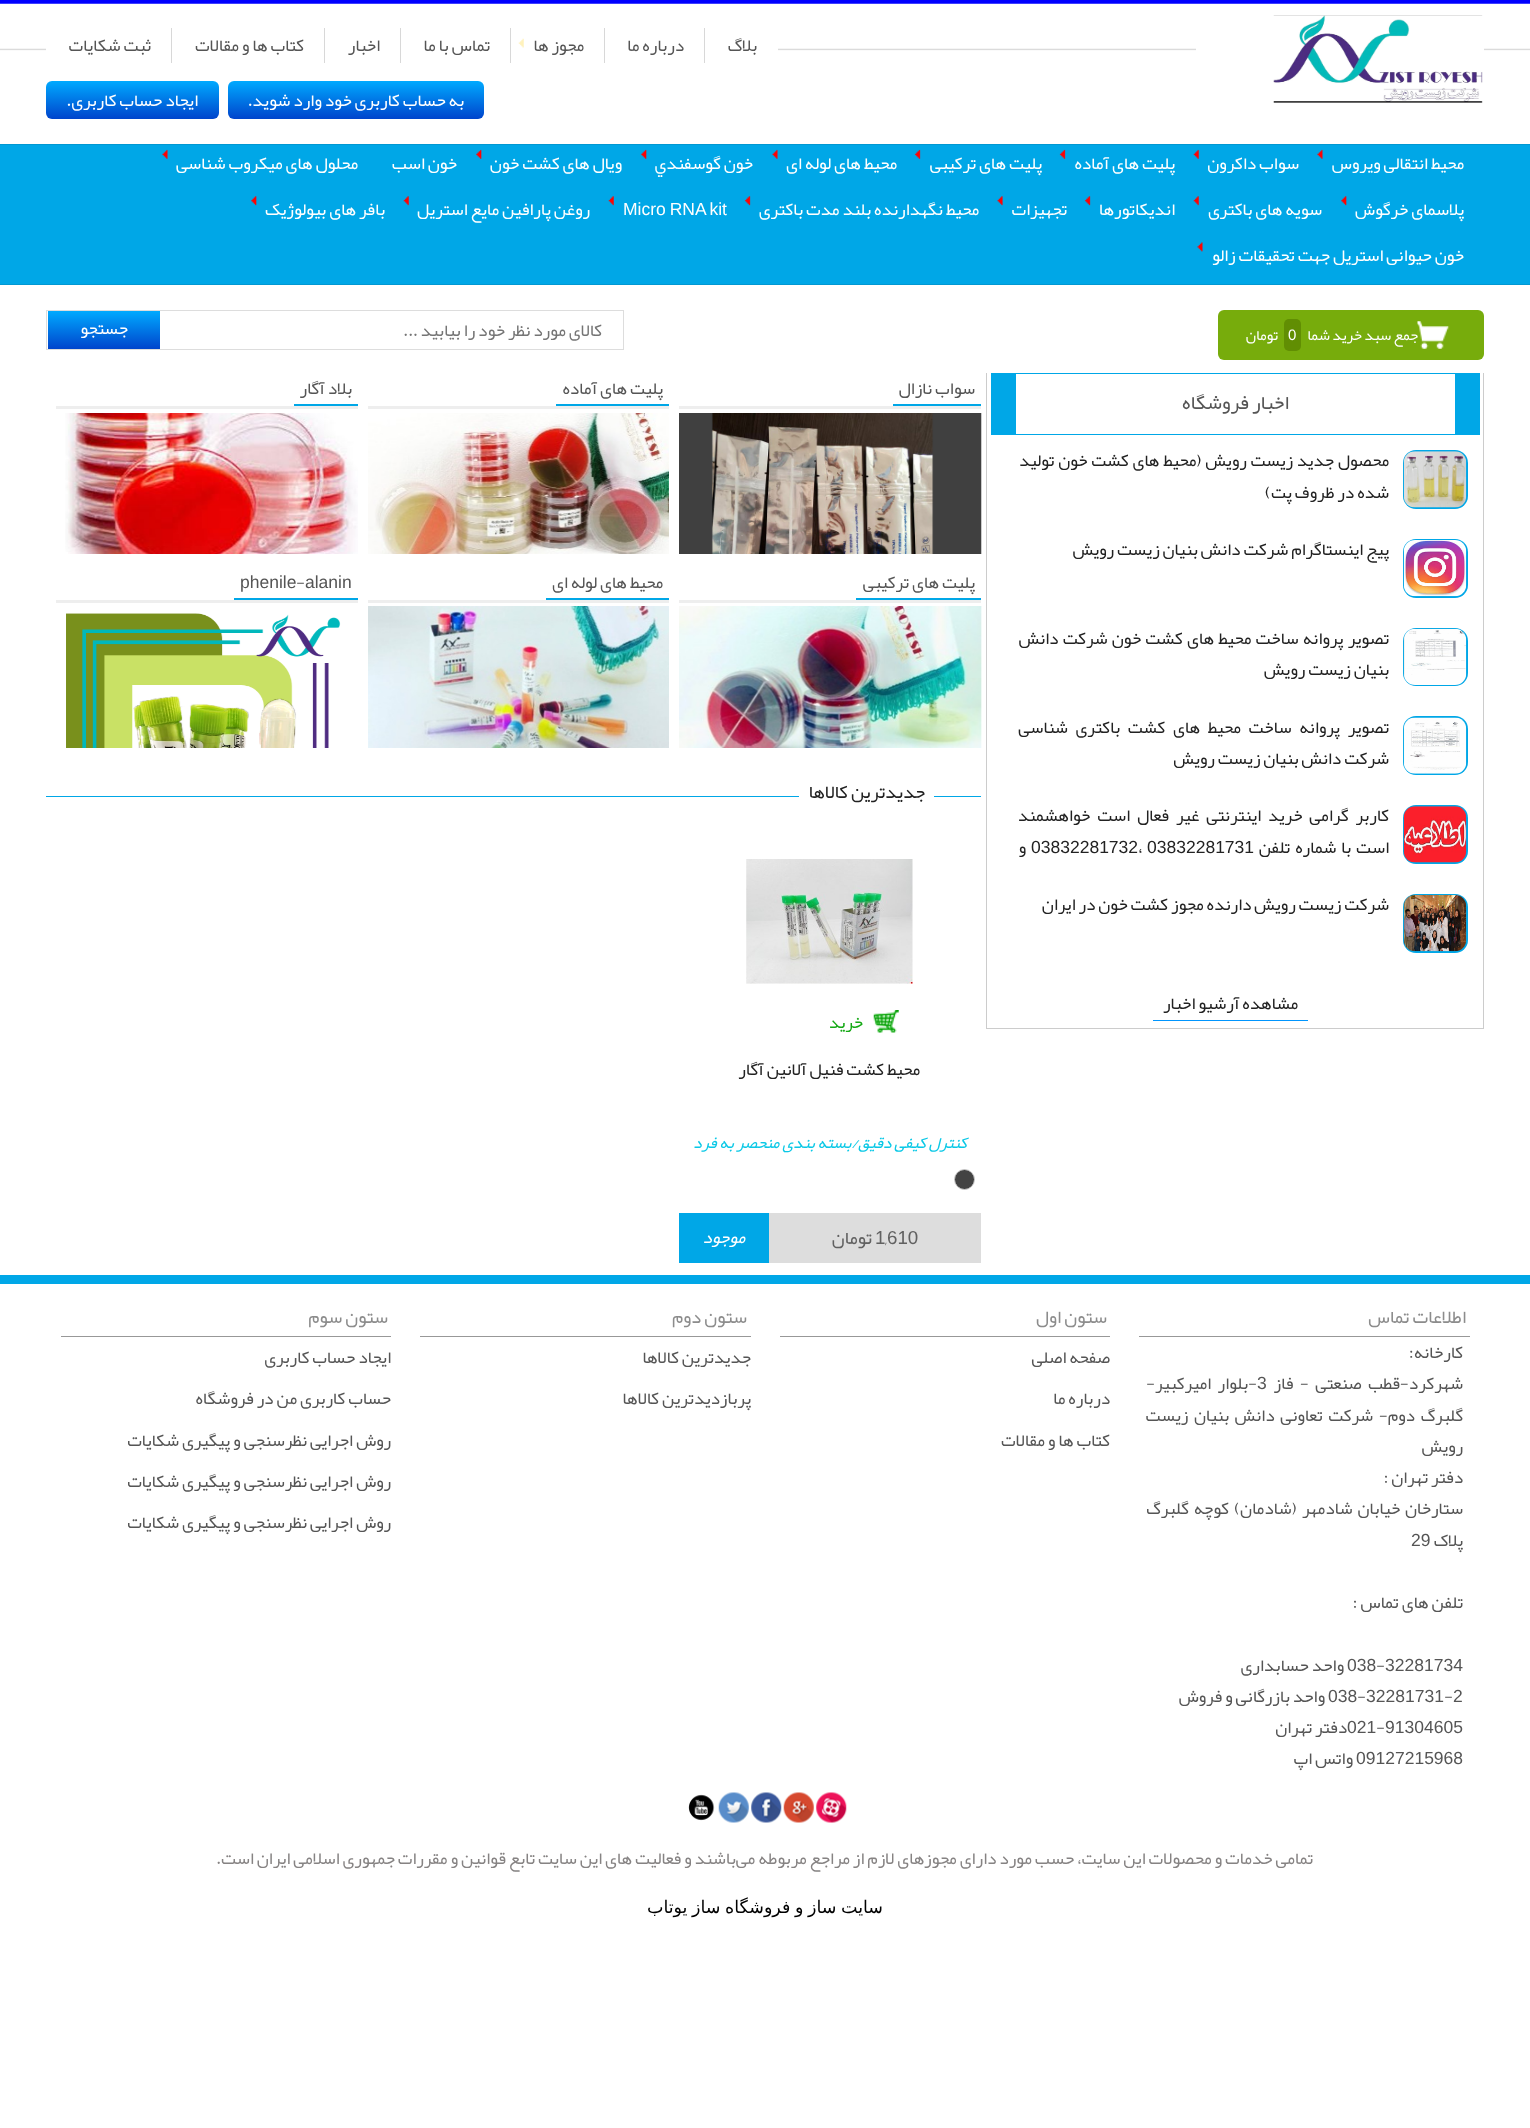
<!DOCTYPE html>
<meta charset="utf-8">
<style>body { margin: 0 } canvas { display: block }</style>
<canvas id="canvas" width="1530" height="2128"></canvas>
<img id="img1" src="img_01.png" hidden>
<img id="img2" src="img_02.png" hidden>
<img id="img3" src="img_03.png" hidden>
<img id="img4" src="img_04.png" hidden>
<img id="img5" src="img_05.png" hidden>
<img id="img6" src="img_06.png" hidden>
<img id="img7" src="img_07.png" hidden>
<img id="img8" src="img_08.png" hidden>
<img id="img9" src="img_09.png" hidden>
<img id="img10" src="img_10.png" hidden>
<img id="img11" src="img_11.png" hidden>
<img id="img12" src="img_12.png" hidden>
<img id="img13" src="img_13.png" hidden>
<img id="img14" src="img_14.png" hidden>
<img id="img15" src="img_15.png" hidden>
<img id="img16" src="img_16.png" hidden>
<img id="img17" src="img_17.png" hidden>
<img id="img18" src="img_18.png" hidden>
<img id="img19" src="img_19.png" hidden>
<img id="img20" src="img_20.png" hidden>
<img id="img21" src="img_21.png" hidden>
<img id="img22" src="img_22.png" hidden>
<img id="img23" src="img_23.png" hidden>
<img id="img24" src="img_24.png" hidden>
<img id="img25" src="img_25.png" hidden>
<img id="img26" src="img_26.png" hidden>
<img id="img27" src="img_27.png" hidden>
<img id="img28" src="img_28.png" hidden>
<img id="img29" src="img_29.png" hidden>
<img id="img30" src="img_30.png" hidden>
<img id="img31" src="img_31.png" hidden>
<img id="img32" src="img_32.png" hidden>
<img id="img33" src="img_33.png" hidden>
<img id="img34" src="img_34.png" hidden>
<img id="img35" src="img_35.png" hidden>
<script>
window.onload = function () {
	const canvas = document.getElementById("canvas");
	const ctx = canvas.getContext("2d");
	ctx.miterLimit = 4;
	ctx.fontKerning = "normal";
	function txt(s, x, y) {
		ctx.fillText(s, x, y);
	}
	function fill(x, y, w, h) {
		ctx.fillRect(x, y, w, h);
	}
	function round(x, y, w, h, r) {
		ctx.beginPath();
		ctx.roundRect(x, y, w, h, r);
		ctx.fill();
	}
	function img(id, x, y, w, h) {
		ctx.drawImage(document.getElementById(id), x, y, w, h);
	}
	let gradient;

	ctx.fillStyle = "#FFFFFF";
	fill(0, 0, 1530, 2128);
	img("img1", 0, 0, 1530, 51);
	fill(1196, 48, 288, 3);
	img("img2", 1273, 15, 210, 88);
	fill(46, 48, 732, 3);
	ctx.fillStyle = "#D8D8D8";
	fill(704, 28, 1, 35);
	fill(604, 28, 1, 35);
	fill(510, 28, 1, 35);
	img("img3", 518, 38, 6, 10);
	fill(400, 28, 1, 35);
	fill(324, 28, 1, 35);
	fill(171, 28, 1, 35);
	gradient = ctx.createLinearGradient(356, 81, 356, 119);
	gradient.addColorStop(0, "#00AAFF");
	gradient.addColorStop(1, "#0044CC");
	ctx.fillStyle = gradient;
	round(228, 81, 256, 38, 6);
	gradient = ctx.createLinearGradient(133, 81, 133, 119);
	gradient.addColorStop(0, "#00AAFF");
	gradient.addColorStop(1, "#0044CC");
	ctx.fillStyle = gradient;
	round(46, 81, 173, 38, 6);
	ctx.fillStyle = "#00A7E7";
	fill(0, 145, 1530, 139);
	ctx.fillStyle = "#0298D2";
	fill(0, 144, 1530, 1);
	fill(0, 284, 1530, 1);
	img("img4", 1317, 149, 6, 10);
	img("img5", 1193, 149, 6, 10);
	img("img6", 1059, 149, 7, 10);
	img("img7", 914, 149, 7, 10);
	img("img8", 772, 149, 6, 10);
	img("img9", 641, 149, 6, 10);
	img("img9", 476, 149, 6, 10);
	img("img4", 162, 149, 6, 10);
	img("img10", 1341, 196, 6, 10);
	img("img11", 1193, 196, 6, 10);
	img("img12", 1084, 196, 7, 10);
	img("img13", 997, 196, 6, 10);
	img("img14", 744, 196, 7, 10);
	img("img11", 608, 196, 6, 10);
	img("img11", 403, 196, 6, 10);
	img("img10", 251, 196, 6, 10);
	img("img15", 1197, 242, 6, 10);
	ctx.fillStyle = "#77AC0C";
	round(1218, 310, 266, 50, 6);
	img("img16", 1417, 321, 33, 28);
	ctx.fillStyle = "#618E03";
	round(1284, 319, 17, 32, 5);
	ctx.strokeStyle = "#DDDDDD";
	ctx.strokeRect(46.5, 310.5, 577, 39);
	gradient = ctx.createLinearGradient(104, 311, 104, 349);
	gradient.addColorStop(0, "#00AAFF");
	gradient.addColorStop(1, "#0044CC");
	ctx.fillStyle = gradient;
	fill(48, 311, 112, 38);
	ctx.fillStyle = "#CCCCCC";
	fill(1483, 373, 1, 656);
	fill(986, 1028, 498, 1);
	fill(986, 373, 1, 656);
	ctx.fillStyle = "#00A7E7";
	fill(1016, 373, 439, 1);
	fill(1455, 373, 25, 61);
	fill(1016, 434, 464, 1);
	fill(991, 373, 25, 62);
	round(1403, 450, 65, 59, 13);
	img("img17", 1403, 451, 64, 57);
	round(1403, 539, 65, 59, 13);
	img("img18", 1403, 540, 64, 57);
	round(1403, 628, 65, 58, 13);
	img("img19", 1403, 628, 64, 57);
	round(1403, 716, 65, 59, 13);
	img("img20", 1403, 717, 64, 57);
	round(1403, 805, 65, 59, 13);
	img("img21", 1403, 806, 64, 57);
	round(1403, 894, 65, 59, 13);
	img("img22", 1403, 895, 64, 57);
	ctx.fillStyle = "#0095FE";
	fill(1153, 1020, 155, 1);
	ctx.fillStyle = "#00A7E7";
	fill(893, 404, 88, 2);
	ctx.fillStyle = "#EEEEEE";
	fill(679, 406, 302, 3);
	img("img23", 679, 413, 303, 141);
	ctx.fillStyle = "#00A7E7";
	fill(556, 404, 113, 2);
	ctx.fillStyle = "#EEEEEE";
	fill(368, 406, 301, 3);
	img("img24", 368, 413, 301, 141);
	ctx.fillStyle = "#00A7E7";
	fill(294, 404, 64, 2);
	ctx.fillStyle = "#EEEEEE";
	fill(56, 406, 302, 3);
	img("img25", 65, 413, 293, 141);
	ctx.fillStyle = "#00A7E7";
	fill(856, 598, 125, 2);
	ctx.fillStyle = "#EEEEEE";
	fill(679, 600, 302, 3);
	img("img26", 679, 606, 303, 142);
	ctx.fillStyle = "#00A7E7";
	fill(546, 598, 123, 2);
	ctx.fillStyle = "#EEEEEE";
	fill(368, 600, 301, 3);
	img("img27", 368, 606, 301, 142);
	ctx.fillStyle = "#00A7E7";
	fill(234, 598, 124, 2);
	ctx.fillStyle = "#EEEEEE";
	fill(56, 600, 302, 3);
	img("img28", 66, 613, 275, 135);
	ctx.fillStyle = "#00A7E7";
	fill(46, 796, 935, 1);
	ctx.fillStyle = "#FFFFFF";
	fill(799, 796, 135, 1);
	img("img29", 746, 859, 167, 125);
	img("img30", 873, 1010, 26, 23);
	ctx.fillStyle = "#434343";
	ctx.beginPath();
	ctx.arc(964.5, 1179.5, 10, 0, Math.PI * 2);
	ctx.fill();
	ctx.strokeStyle = "#CCCCCC";
	ctx.stroke();
	ctx.fillStyle = "#DDDDDD";
	fill(769, 1213, 212, 50);
	ctx.fillStyle = "#00A7E7";
	fill(679, 1213, 90, 50);
	fill(0, 1275, 1530, 9);
	ctx.fillStyle = "#989898";
	fill(1139, 1336, 331, 1);
	fill(780, 1336, 330, 1);
	fill(420, 1336, 331, 1);
	fill(61, 1336, 330, 1);
	img("img31", 816, 1792, 31, 31);
	img("img32", 783, 1792, 31, 31);
	img("img33", 751, 1792, 31, 31);
	img("img34", 718, 1792, 31, 31);
	img("img35", 688, 1794, 27, 27);
	ctx.direction = "rtl";
	ctx.font = "17.5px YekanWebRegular";
	ctx.fillStyle = "#555555";
	txt("بلاگ", 757, 51);
	txt("درباره ما", 684, 51);
	txt("مجوز ها", 584, 51);
	txt("تماس با ما", 490, 51);
	txt("اخبار", 380, 51);
	txt("کتاب ها و مقالات", 304, 51);
	txt("ثبت شکایات", 151, 51);
	ctx.fillStyle = "#FFFFFF";
	txt("به حساب کاربری خود وارد شوید.", 464, 106);
	txt("ایجاد حساب کاربری.", 198, 106);
	txt("محیط انتقالی ویروس", 1464, 169);
	txt("سواب داکرون", 1299, 169);
	txt("پلیت های آماده", 1175, 169);
	txt("پلیت های ترکیبی", 1042, 169);
	txt("محیط های لوله ای", 897, 169);
	txt("خون گوسفندي", 753, 169);
	txt("ویال های کشت خون", 622, 169);
	txt("خون اسب", 457, 169);
	txt("محلول های میکروب شناسی", 358, 169);
	txt("پلاسمای خرگوش", 1464, 215);
	txt("سویه های باکتری", 1322, 215);
	txt("اندیکاتورها", 1175, 215);
	txt("تجهیزات", 1067, 215);
	txt("محیط نگهدارنده بلند مدت باکتری", 979, 215);
	ctx.wordSpacing = "-1px";
	ctx.direction = "ltr";
	ctx.font = "17.5px Liberation Sans";
	txt("Micro RNA kit", 623, 215);
	ctx.wordSpacing = "0px";
	ctx.direction = "rtl";
	ctx.font = "17.5px YekanWebRegular";
	txt("روغن پارافین مایع استریل", 590, 215);
	txt("بافر های بیولوژیک", 385, 215);
	txt("خون حیوانی استریل جهت تحقیقات زالو", 1464, 261);
	ctx.font = "15px YekanWebRegular";
	txt("جمع سبد خرید شما", 1418, 340);
	ctx.direction = "ltr";
	ctx.font = "15px Liberation Sans";
	txt("0", 1288, 340);
	ctx.direction = "rtl";
	ctx.font = "15px YekanWebRegular";
	txt("تومان", 1278, 340);
	ctx.font = "17.5px YekanWebRegular";
	ctx.fillStyle = "#757575";
	txt("کالای مورد نظر خود را بیابید ...", 602, 336);
	ctx.fillStyle = "#FFFFFF";
	txt("جستجو", 128, 334);
	ctx.font = "20px YekanWebRegular";
	ctx.fillStyle = "#555555";
	txt("اخبار فروشگاه", 1289, 409);
	ctx.wordSpacing = "0.75px";
	ctx.font = "17.5px YekanWebRegular";
	ctx.fillStyle = "#222222";
	txt("محصول جدید زیست رویش (محیط های کشت خون تولید", 1389, 466);
	ctx.wordSpacing = "0px";
	txt("شده در ظروف پت)", 1389, 498);
	txt("پیج اینستاگرام شرکت دانش بنیان زیست رویش", 1389, 555);
	ctx.wordSpacing = "1.25px";
	txt("تصویر پروانه ساخت محیط های کشت خون شرکت دانش", 1389, 644);
	ctx.wordSpacing = "0px";
	txt("بنیان زیست رویش", 1389, 675);
	ctx.wordSpacing = "4.75px";
	txt("تصویر پروانه ساخت محیط های کشت باکتری شناسی", 1389, 733);
	ctx.wordSpacing = "0px";
	txt("شرکت دانش بنیان زیست رویش", 1389, 764);
	ctx.wordSpacing = "4px";
	txt("کاربر گرامی خرید اینترنتی غیر فعال است خواهشمند", 1389, 821);
	ctx.wordSpacing = "2px";
	txt("است با شماره تلفن", 1389, 853);
	ctx.wordSpacing = "0px";
	ctx.direction = "ltr";
	ctx.font = "17.5px Liberation Sans";
	txt("03832281731", 1147, 853);
	ctx.font = "17.5px YekanWebRegular";
	txt("،", 1138, 853);
	ctx.font = "17.5px Liberation Sans";
	txt("03832281732", 1031, 853);
	ctx.direction = "rtl";
	ctx.font = "17.5px YekanWebRegular";
	txt("و", 1026, 853);
	txt("شرکت زیست رویش دارنده مجوز کشت خون در ایران", 1389, 910);
	txt("مشاهده آرشیو اخبار", 1298, 1009);
	ctx.fillStyle = "#555555";
	txt("سواب نازال", 975, 394);
	txt("پلیت های آماده", 663, 394);
	txt("بلاد آگار", 352, 394);
	txt("پلیت های ترکیبی", 975, 588);
	txt("محیط های لوله ای", 663, 588);
	ctx.direction = "ltr";
	ctx.font = "17.5px Liberation Sans";
	txt("alanin", 305, 588);
	ctx.font = "17.5px YekanWebRegular";
	txt("-", 296, 588);
	ctx.font = "17.5px Liberation Sans";
	txt("phenile", 240, 588);
	ctx.direction = "rtl";
	ctx.font = "18.75px YekanWebRegular";
	ctx.fillStyle = "#222222";
	txt("جدیدترین کالاها", 925, 798);
	ctx.font = "17.5px YekanWebRegular";
	ctx.fillStyle = "#15A915";
	txt("خرید", 863, 1028);
	ctx.fillStyle = "#222222";
	txt("محیط کشت فنیل آلانین آگار", 920, 1075);
	ctx.font = "italic 16.25px YekanWebRegular";
	ctx.fillStyle = "#0AC8E6";
	txt("کنترل کیفی دقیق/بسته بندی منحصر به فرد", 967, 1148);
	ctx.direction = "ltr";
	ctx.font = "18.75px Liberation Sans";
	ctx.fillStyle = "#616161";
	txt("610", 887, 1244);
	ctx.font = "18.75px YekanWebRegular";
	txt(",", 885, 1244);
	ctx.font = "18.75px Liberation Sans";
	txt("1", 875, 1244);
	ctx.direction = "rtl";
	ctx.font = "18.75px YekanWebRegular";
	txt("تومان", 872, 1244);
	ctx.font = "italic 17.5px YekanWebRegular";
	ctx.fillStyle = "#FFFFFF";
	txt("موجود", 745, 1243);
	ctx.font = "18.75px YekanWebRegular";
	ctx.fillStyle = "#8C8C8C";
	txt("اطلاعات تماس", 1466, 1323);
	ctx.font = "17.5px YekanWebRegular";
	ctx.fillStyle = "#555555";
	txt("کارخانه:", 1463, 1358);
	ctx.wordSpacing = "3.5px";
	txt("شهرکرد-قطب صنعتی - فاز", 1463, 1389);
	ctx.wordSpacing = "0px";
	ctx.direction = "ltr";
	ctx.font = "17.5px Liberation Sans";
	txt("3", 1257, 1389);
	ctx.wordSpacing = "3.5px";
	ctx.direction = "rtl";
	ctx.font = "17.5px YekanWebRegular";
	txt("-بلوار امیرکبیر-", 1257, 1389);
	ctx.wordSpacing = "2.75px";
	txt("گلبرگ دوم- شرکت تعاونی دانش بنیان زیست", 1463, 1421);
	ctx.wordSpacing = "0px";
	txt("رویش", 1463, 1452);
	txt("دفتر تهران :", 1463, 1483);
	ctx.wordSpacing = "2px";
	txt("ستارخان خیابان شادمهر (شادمان) کوچه گلبرگ", 1463, 1514);
	ctx.wordSpacing = "0px";
	txt("پلاک", 1463, 1546);
	ctx.direction = "ltr";
	ctx.font = "17.5px Liberation Sans";
	txt("29", 1411, 1546);
	ctx.direction = "rtl";
	ctx.font = "17.5px YekanWebRegular";
	txt("تلفن های تماس :", 1463, 1608);
	ctx.direction = "ltr";
	ctx.font = "17.5px Liberation Sans";
	txt("32281734", 1385, 1671);
	ctx.font = "17.5px YekanWebRegular";
	txt("-", 1376, 1671);
	ctx.font = "17.5px Liberation Sans";
	txt("038", 1347, 1671);
	ctx.direction = "rtl";
	ctx.font = "17.5px YekanWebRegular";
	txt("واحد حسابداری", 1344, 1671);
	ctx.direction = "ltr";
	ctx.font = "17.5px Liberation Sans";
	txt("2", 1453, 1702);
	ctx.font = "17.5px YekanWebRegular";
	txt("-", 1444, 1702);
	ctx.font = "17.5px Liberation Sans";
	txt("32281731", 1366, 1702);
	ctx.font = "17.5px YekanWebRegular";
	txt("-", 1357, 1702);
	ctx.font = "17.5px Liberation Sans";
	txt("038", 1328, 1702);
	ctx.direction = "rtl";
	ctx.font = "17.5px YekanWebRegular";
	txt("واحد بازرگانی و فروش", 1325, 1702);
	ctx.direction = "ltr";
	ctx.font = "17.5px Liberation Sans";
	txt("91304605", 1385, 1733);
	ctx.font = "17.5px YekanWebRegular";
	txt("-", 1376, 1733);
	ctx.font = "17.5px Liberation Sans";
	txt("021", 1347, 1733);
	ctx.direction = "rtl";
	ctx.font = "17.5px YekanWebRegular";
	txt("دفتر تهران", 1347, 1733);
	ctx.direction = "ltr";
	ctx.font = "17.5px Liberation Sans";
	txt("09127215968", 1356, 1764);
	ctx.direction = "rtl";
	ctx.font = "17.5px YekanWebRegular";
	txt("واتس اپ", 1353, 1764);
	ctx.font = "18.75px YekanWebRegular";
	ctx.fillStyle = "#8C8C8C";
	txt("ستون اول", 1107, 1323);
	ctx.font = "17.5px YekanWebRegular";
	ctx.fillStyle = "#555555";
	txt("صفحه اصلی", 1110, 1363);
	txt("درباره ما", 1110, 1404);
	txt("کتاب ها و مقالات", 1110, 1446);
	ctx.font = "18.75px YekanWebRegular";
	ctx.fillStyle = "#8C8C8C";
	txt("ستون دوم", 747, 1323);
	ctx.font = "17.5px YekanWebRegular";
	ctx.fillStyle = "#555555";
	txt("جدیدترین کالاها", 751, 1363);
	txt("پربازدیدترین کالاها", 751, 1404);
	ctx.font = "18.75px YekanWebRegular";
	ctx.fillStyle = "#8C8C8C";
	txt("ستون سوم", 388, 1323);
	ctx.font = "17.5px YekanWebRegular";
	ctx.fillStyle = "#555555";
	txt("ایجاد حساب کاربری", 391, 1363);
	txt("حساب کاربری من در فروشگاه", 391, 1404);
	txt("روش اجرایی نظرسنجی و پیگیری شکایات", 391, 1446);
	txt("روش اجرایی نظرسنجی و پیگیری شکایات", 391, 1487);
	txt("روش اجرایی نظرسنجی و پیگیری شکایات", 391, 1528);
	ctx.fillStyle = "#868383";
	txt("تمامی خدمات و محصولات این سایت، حسب مورد دارای مجوزهای لازم از مراجع مربوطه می‌باشند و فعالیت های این سایت تابع قوانین و مقررات جمهوری اسلامی ایران است.", 1313, 1864);
	ctx.wordSpacing = "-1px";
	ctx.font = "17.5px DejaVu Sans";
	ctx.fillStyle = "#000000";
	txt("سایت ساز و فروشگاه ساز یوتاب", 883, 1913);
};
</script>
